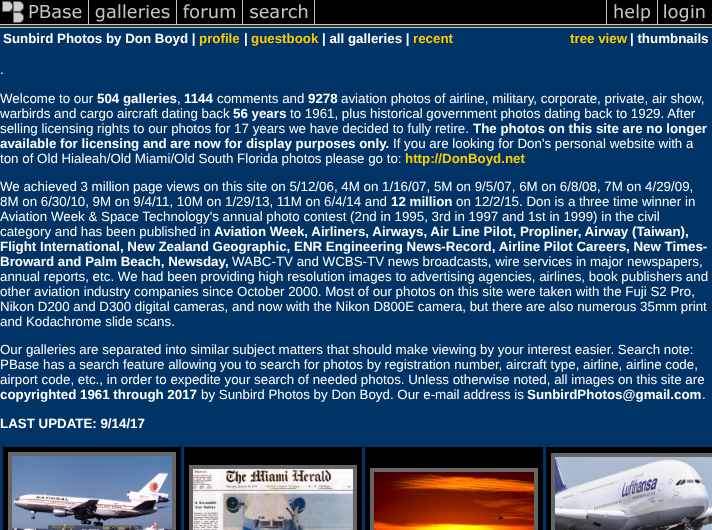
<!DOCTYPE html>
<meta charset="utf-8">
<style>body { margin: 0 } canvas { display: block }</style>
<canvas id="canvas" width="712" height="530"></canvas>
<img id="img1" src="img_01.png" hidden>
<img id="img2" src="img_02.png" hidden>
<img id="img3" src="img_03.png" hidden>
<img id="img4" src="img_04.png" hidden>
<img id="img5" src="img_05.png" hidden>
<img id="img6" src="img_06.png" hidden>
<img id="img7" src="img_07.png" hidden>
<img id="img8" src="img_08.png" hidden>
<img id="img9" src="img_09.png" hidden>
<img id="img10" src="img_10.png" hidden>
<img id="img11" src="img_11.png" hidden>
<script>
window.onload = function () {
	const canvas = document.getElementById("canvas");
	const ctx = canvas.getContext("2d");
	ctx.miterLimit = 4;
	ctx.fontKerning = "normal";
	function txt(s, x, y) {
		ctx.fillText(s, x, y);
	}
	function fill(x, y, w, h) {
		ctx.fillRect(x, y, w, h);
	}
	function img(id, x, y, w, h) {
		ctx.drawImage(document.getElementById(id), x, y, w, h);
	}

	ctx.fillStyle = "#003366";
	fill(0, 0, 712, 530);
	img("img1", 0, 0, 89, 28);
	img("img2", 89, 0, 88, 28);
	img("img3", 177, 0, 66, 28);
	img("img4", 243, 0, 72, 28);
	img("img5", 315, 0, 291, 28);
	img("img6", 606, 0, 52, 28);
	img("img7", 658, 0, 54, 28);
	ctx.fillStyle = "#000000";
	fill(3, 447, 178, 83);
	ctx.strokeStyle = "#666666";
	ctx.lineWidth = 4;
	ctx.strokeRect(10, 454, 164, 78);
	img("img8", 12, 456, 160, 74);
	fill(184, 447, 178, 83);
	ctx.strokeRect(191, 467, 164, 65);
	img("img9", 193, 469, 160, 61);
	fill(365, 447, 178, 83);
	ctx.strokeRect(372, 470, 164, 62);
	img("img10", 374, 472, 160, 58);
	fill(546, 447, 166, 83);
	ctx.strokeRect(553, 455, 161, 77);
	img("img11", 555, 457, 157, 73);
	ctx.font = "bold 13.33px Liberation Sans";
	ctx.fillStyle = "#FFFFFF";
	txt("Sunbird Photos by Don Boyd |", 3, 43);
	ctx.fillStyle = "#FFCC00";
	txt("profile", 199, 43);
	ctx.fillStyle = "#FFFFFF";
	txt("|", 244, 43);
	ctx.fillStyle = "#FFCC00";
	txt("guestbook", 251, 43);
	ctx.fillStyle = "#FFFFFF";
	txt("| all galleries |", 322, 43);
	ctx.fillStyle = "#FFCC00";
	txt("recent", 413, 43);
	txt("tree view", 570, 43);
	ctx.fillStyle = "#FFFFFF";
	txt("| thumbnails", 630, 43);
	ctx.font = "13.33px Liberation Sans";
	txt(".", 0, 74);
	txt("Welcome to our", 0, 103);
	ctx.font = "bold 13.33px Liberation Sans";
	txt("504 galleries", 97, 103);
	ctx.font = "13.33px Liberation Sans";
	txt(",", 177, 103);
	ctx.font = "bold 13.33px Liberation Sans";
	txt("1144", 184, 103);
	ctx.font = "13.33px Liberation Sans";
	txt("comments and", 217, 103);
	ctx.font = "bold 13.33px Liberation Sans";
	txt("9278", 308, 103);
	ctx.font = "13.33px Liberation Sans";
	txt("aviation photos of airline, military, corporate, private, air show,", 341, 103);
	txt("warbirds and cargo aircraft dating back", 0, 118);
	ctx.font = "bold 13.33px Liberation Sans";
	txt("56 years", 233, 118);
	ctx.font = "13.33px Liberation Sans";
	txt("to 1961, plus historical government photos dating back to 1929. After", 290, 118);
	txt("selling licensing rights to our photos for 17 years we have decided to fully retire.", 0, 133);
	ctx.font = "bold 13.33px Liberation Sans";
	txt("The photos on this site are no longer", 473, 133);
	txt("available for licensing and are now for display purposes only.", 0, 148);
	ctx.font = "13.33px Liberation Sans";
	txt("If you are looking for Don's personal website with a", 393, 148);
	txt("ton of Old Hialeah/Old Miami/Old South Florida photos please go to:", 0, 163);
	ctx.font = "bold 13.33px Liberation Sans";
	ctx.fillStyle = "#FFCC00";
	txt("http://DonBoyd.net", 405, 163);
	ctx.font = "13.33px Liberation Sans";
	ctx.fillStyle = "#FFFFFF";
	txt("We achieved 3 million page views on this site on 5/12/06, 4M on 1/16/07, 5M on 9/5/07, 6M on 6/8/08, 7M on 4/29/09,", 0, 191);
	txt("8M on 6/30/10, 9M on 9/4/11, 10M on 1/29/13, 11M on 6/4/14 and", 0, 206);
	ctx.font = "bold 13.33px Liberation Sans";
	txt("12 million", 391, 206);
	ctx.font = "13.33px Liberation Sans";
	txt("on 12/2/15. Don is a three time winner in", 456, 206);
	txt("Aviation Week & Space Technology's annual photo contest (2nd in 1995, 3rd in 1997 and 1st in 1999) in the civil", 0, 221);
	txt("category and has been published in", 0, 236);
	ctx.font = "bold 13.33px Liberation Sans";
	txt("Aviation Week, Airliners, Airways, Air Line Pilot, Propliner, Airway (Taiwan),", 214, 236);
	txt("Flight International, New Zealand Geographic, ENR Engineering News-Record, Airline Pilot Careers, New Times-", 0, 251);
	txt("Broward and Palm Beach, Newsday,", 0, 266);
	ctx.font = "13.33px Liberation Sans";
	txt("WABC-TV and WCBS-TV news broadcasts, wire services in major newspapers,", 232, 266);
	txt("annual reports, etc. We had been providing high resolution images to advertising agencies, airlines, book publishers and", 0, 281);
	txt("other aviation industry companies since October 2000. Most of our photos on this site were taken with the Fuji S2 Pro,", 0, 296);
	txt("Nikon D200 and D300 digital cameras, and now with the Nikon D800E camera, but there are also numerous 35mm print", 0, 311);
	txt("and Kodachrome slide scans.", 0, 326);
	txt("Our galleries are separated into similar subject matters that should make viewing by your interest easier. Search note:", 0, 354);
	txt("PBase has a search feature allowing you to search for photos by registration number, aircraft type, airline, airline code,", 0, 369);
	txt("airport code, etc., in order to expedite your search of needed photos. Unless otherwise noted, all images on this site are", 0, 384);
	ctx.font = "bold 13.33px Liberation Sans";
	txt("copyrighted 1961 through 2017", 0, 399);
	ctx.font = "13.33px Liberation Sans";
	txt("by Sunbird Photos by Don Boyd. Our e-mail address is", 201, 399);
	ctx.font = "bold 13.33px Liberation Sans";
	txt("SunbirdPhotos@gmail.com", 527, 399);
	ctx.font = "13.33px Liberation Sans";
	txt(".", 702, 399);
	ctx.font = "bold 13.33px Liberation Sans";
	txt("LAST UPDATE: 9/14/17", 0, 428);
};
</script>
